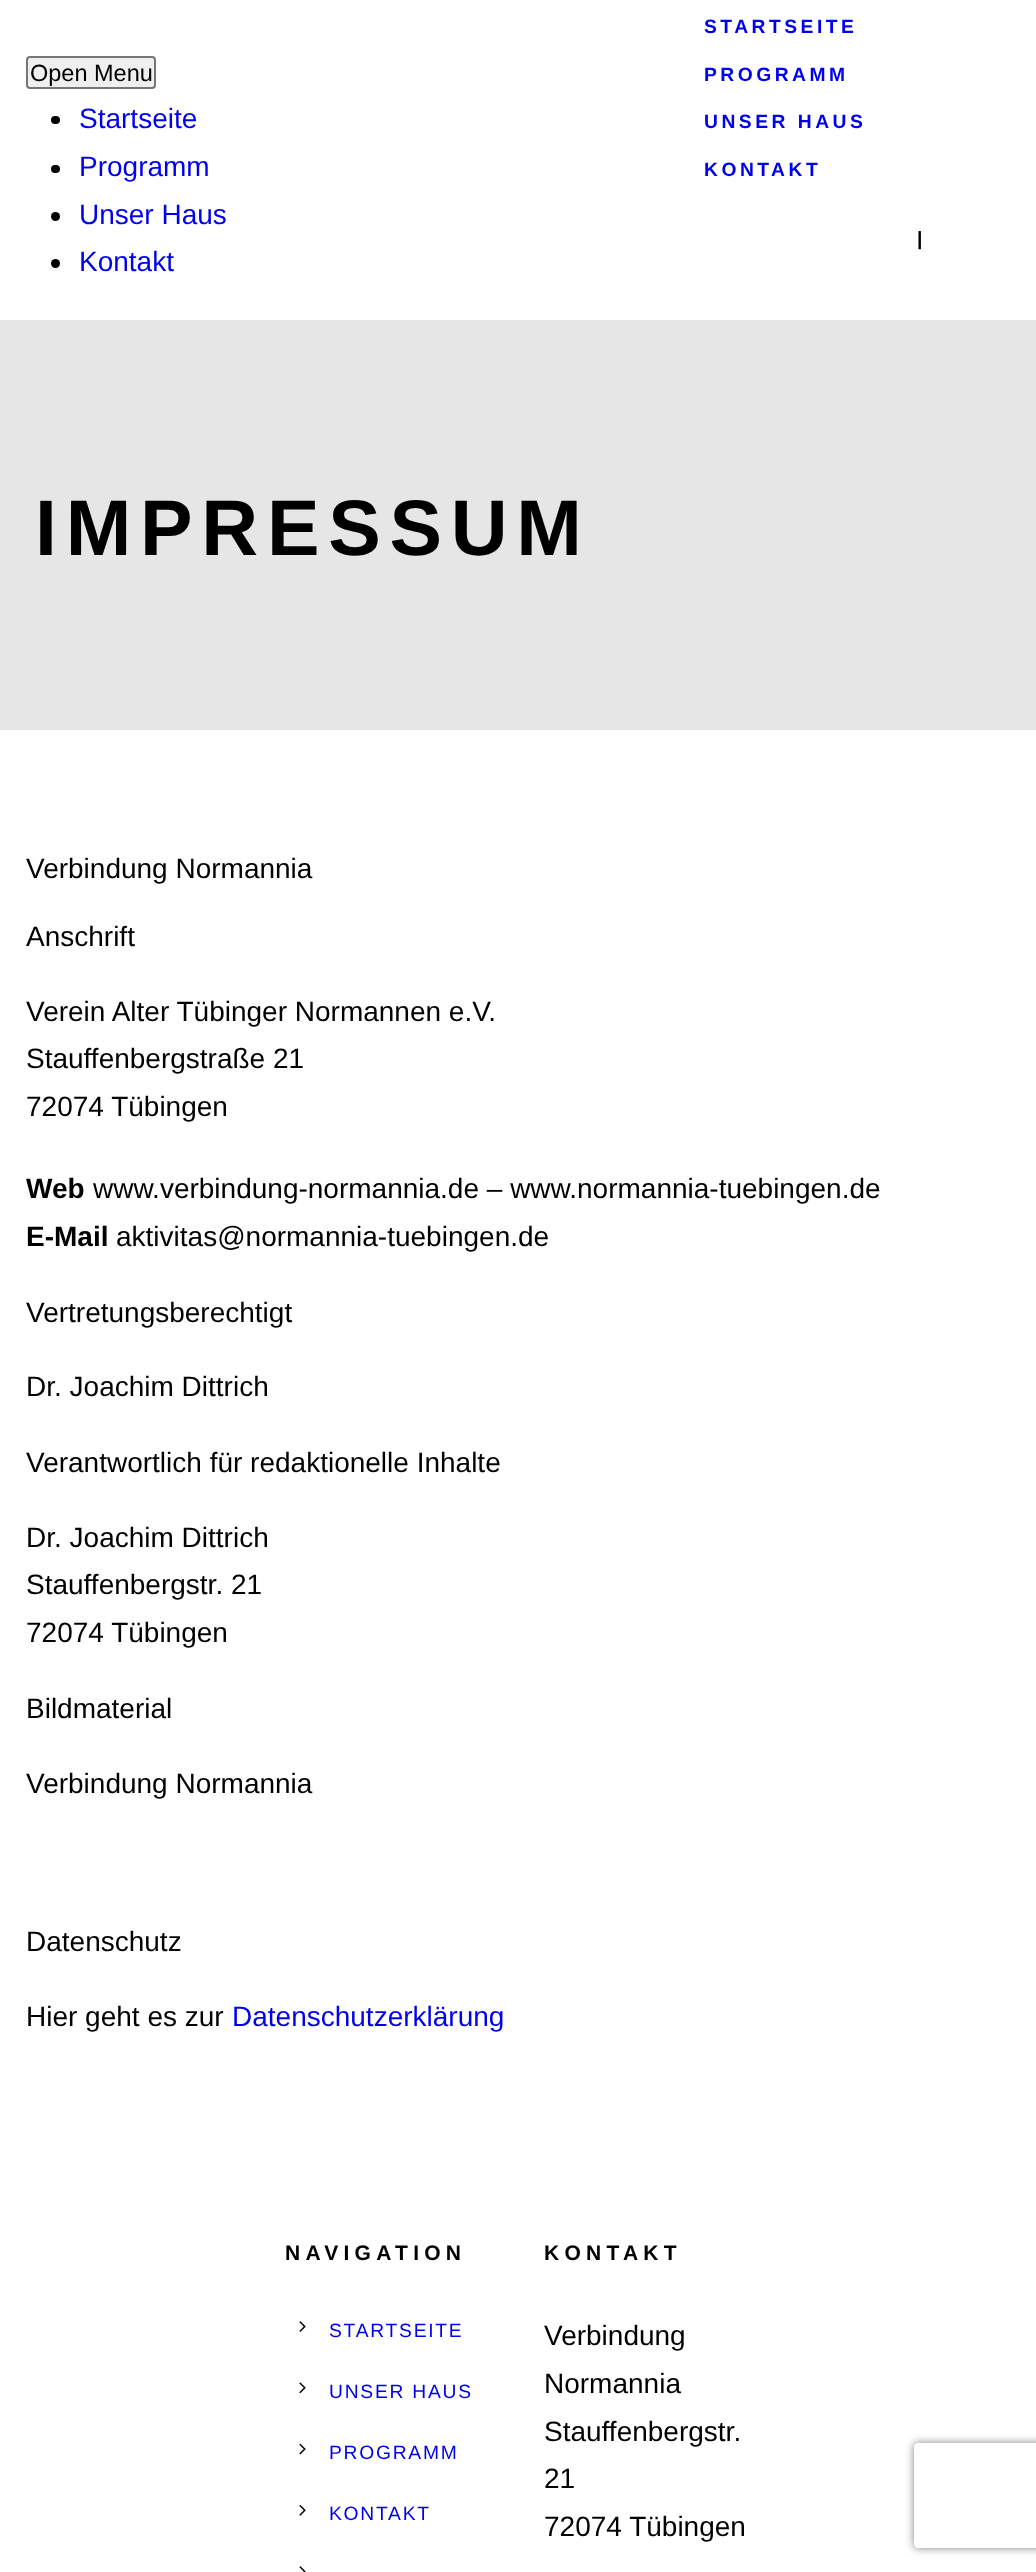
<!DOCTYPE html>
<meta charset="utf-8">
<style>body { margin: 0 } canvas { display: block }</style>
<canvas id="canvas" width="1036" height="2572"></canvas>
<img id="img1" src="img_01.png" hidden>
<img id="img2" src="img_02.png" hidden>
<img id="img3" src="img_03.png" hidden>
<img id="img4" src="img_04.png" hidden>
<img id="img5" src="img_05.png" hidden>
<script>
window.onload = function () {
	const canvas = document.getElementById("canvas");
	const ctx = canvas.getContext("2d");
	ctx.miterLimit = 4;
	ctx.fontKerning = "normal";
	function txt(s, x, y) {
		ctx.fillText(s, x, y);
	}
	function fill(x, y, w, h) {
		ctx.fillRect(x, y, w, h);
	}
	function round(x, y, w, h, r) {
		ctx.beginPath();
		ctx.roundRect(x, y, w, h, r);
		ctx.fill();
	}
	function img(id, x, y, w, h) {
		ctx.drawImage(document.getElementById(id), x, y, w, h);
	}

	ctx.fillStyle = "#FFFFFF";
	fill(0, 0, 1036, 2572);
	ctx.fillStyle = "#EFEFEF";
	ctx.beginPath();
	ctx.roundRect(27, 57, 128, 31, 3);
	ctx.fill();
	ctx.strokeStyle = "#767676";
	ctx.lineWidth = 2;
	ctx.stroke();
	ctx.fillStyle = "#000000";
	round(51, 116, 9, 8, 4);
	round(51, 165, 9, 8, 4);
	ctx.beginPath();
	ctx.arc(55.5, 216.5, 4.5, 0, Math.PI * 2);
	ctx.fill();
	ctx.beginPath();
	ctx.arc(55.5, 263.5, 4.5, 0, Math.PI * 2);
	ctx.fill();
	ctx.fillStyle = "#E6E6E6";
	fill(0, 320, 1036, 410);
	img("img1", 299, 2321, 7, 11);
	img("img2", 299, 2382, 7, 12);
	img("img3", 299, 2443, 7, 12);
	img("img4", 299, 2505, 7, 11);
	img("img5", 299, 2566, 7, 6);
	ctx.save();
	ctx.beginPath();
	ctx.moveTo(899, 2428);
	ctx.lineTo(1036, 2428);
	ctx.lineTo(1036, 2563);
	ctx.lineTo(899, 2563);
	ctx.closePath();
	ctx.moveTo(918, 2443);
	ctx.lineTo(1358, 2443);
	ctx.bezierCurveTo(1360, 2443, 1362, 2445, 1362, 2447);
	ctx.lineTo(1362, 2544);
	ctx.bezierCurveTo(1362, 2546, 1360, 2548, 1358, 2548);
	ctx.lineTo(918, 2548);
	ctx.bezierCurveTo(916, 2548, 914, 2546, 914, 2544);
	ctx.lineTo(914, 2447);
	ctx.bezierCurveTo(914, 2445, 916, 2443, 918, 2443);
	ctx.closePath();
	ctx.clip("evenodd");
	ctx.fillStyle = "#808080";
	ctx.filter = "blur(4.5px)";
	ctx.beginPath();
	ctx.roundRect(914, 2443, 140, 105, 4);
	ctx.fill();
	ctx.filter = "none";
	ctx.restore();
	ctx.font = "23.5px Liberation Sans";
	ctx.fillStyle = "#000000";
	txt("Open Menu", 30, 81);
	ctx.font = "28px Liberation Sans";
	ctx.fillStyle = "#0000EE";
	txt("Startseite", 79, 128);
	txt("Programm", 79, 176);
	txt("Unser Haus", 79, 224);
	txt("Kontakt", 79, 271);
	ctx.letterSpacing = "3.5px";
	ctx.font = "bold 19.25px Liberation Sans";
	txt("STARTSEITE", 704, 33);
	txt("PROGRAMM", 704, 81);
	txt("UNSER HAUS", 704, 128);
	txt("KONTAKT", 704, 176);
	ctx.letterSpacing = "0px";
	ctx.fillStyle = "#000000";
	txt("|", 917, 245);
	ctx.letterSpacing = "8.75px";
	ctx.font = "bold 78.75px Liberation Sans";
	txt("IMPRESSUM", 35, 555);
	ctx.letterSpacing = "0px";
	ctx.font = "28px Liberation Sans";
	txt("Verbindung Normannia", 26, 878);
	txt("Anschrift", 26, 946);
	txt("Verein Alter Tübinger Normannen e.V.", 26, 1021);
	txt("Stauffenbergstraße 21", 26, 1068);
	txt("72074 Tübingen", 26, 1116);
	ctx.font = "bold 28px Liberation Sans";
	txt("Web", 26, 1198);
	ctx.font = "28px Liberation Sans";
	txt("www.verbindung-normannia.de – www.normannia-tuebingen.de", 93, 1198);
	ctx.font = "bold 28px Liberation Sans";
	txt("E-Mail", 26, 1246);
	ctx.font = "28px Liberation Sans";
	txt("aktivitas@normannia-tuebingen.de", 116, 1246);
	txt("Vertretungsberechtigt", 26, 1322);
	txt("Dr. Joachim Dittrich", 26, 1396);
	txt("Verantwortlich für redaktionelle Inhalte", 26, 1472);
	txt("Dr. Joachim Dittrich", 26, 1547);
	txt("Stauffenbergstr. 21", 26, 1594);
	txt("72074 Tübingen", 26, 1642);
	txt("Bildmaterial", 26, 1718);
	txt("Verbindung Normannia", 26, 1793);
	txt("Datenschutz", 26, 1951);
	txt("Hier geht es zur", 26, 2026);
	ctx.fillStyle = "#0000EE";
	txt("Datenschutzerklärung", 232, 2026);
	ctx.letterSpacing = "5.25px";
	ctx.font = "bold 21px Liberation Sans";
	ctx.fillStyle = "#000000";
	txt("NAVIGATION", 285, 2260);
	ctx.letterSpacing = "1.75px";
	ctx.font = "19.25px Liberation Sans";
	ctx.fillStyle = "#0000EE";
	txt("STARTSEITE", 329, 2337);
	txt("UNSER HAUS", 329, 2398);
	txt("PROGRAMM", 329, 2459);
	txt("KONTAKT", 329, 2520);
	ctx.letterSpacing = "5.25px";
	ctx.font = "bold 21px Liberation Sans";
	ctx.fillStyle = "#000000";
	txt("KONTAKT", 544, 2260);
	ctx.letterSpacing = "0px";
	ctx.font = "28px Liberation Sans";
	txt("Verbindung", 544, 2345);
	txt("Normannia", 544, 2393);
	txt("Stauffenbergstr.", 544, 2441);
	txt("21", 544, 2488);
	txt("72074 Tübingen", 544, 2536);
};
</script>
